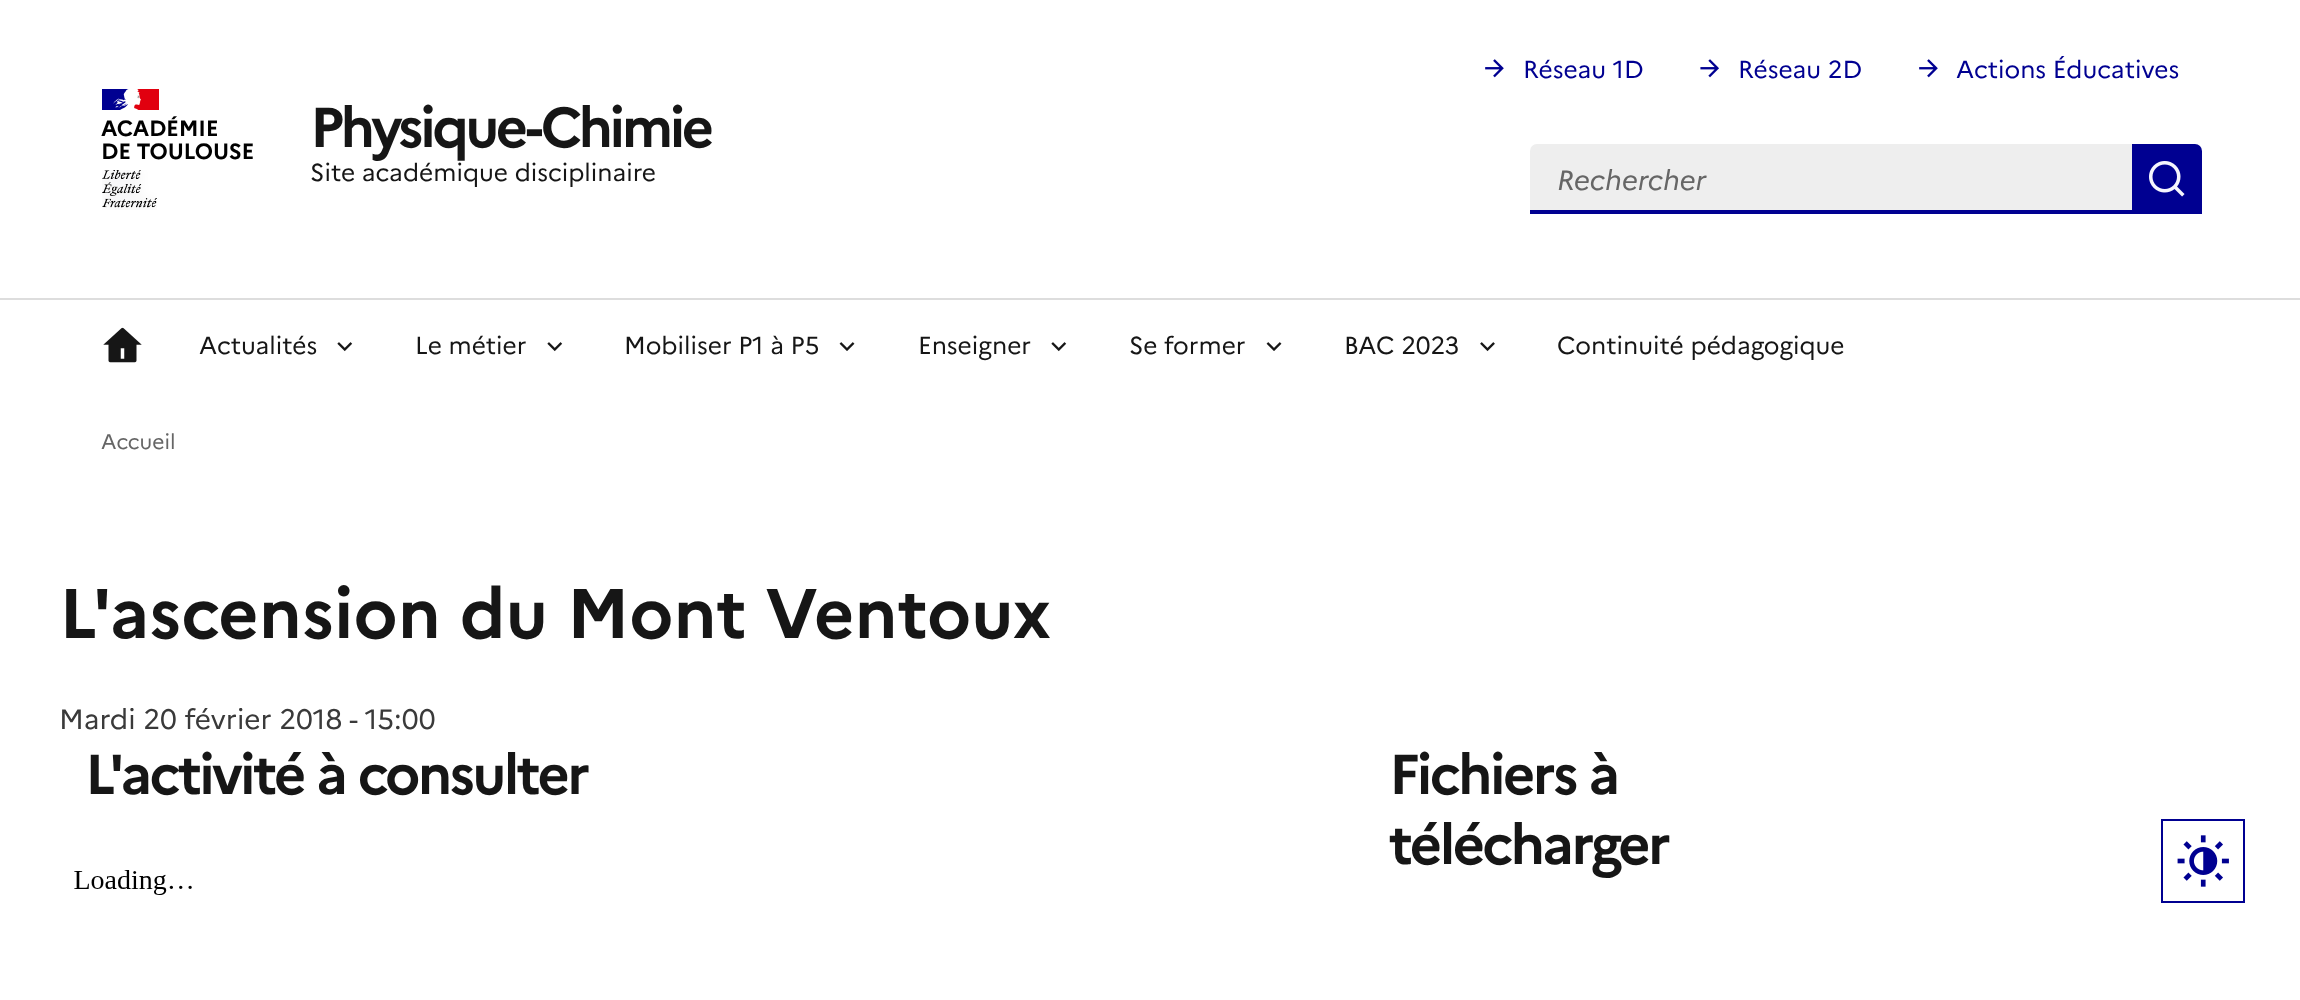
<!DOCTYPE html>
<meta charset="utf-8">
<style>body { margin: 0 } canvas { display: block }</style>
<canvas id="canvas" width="2300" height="1000"></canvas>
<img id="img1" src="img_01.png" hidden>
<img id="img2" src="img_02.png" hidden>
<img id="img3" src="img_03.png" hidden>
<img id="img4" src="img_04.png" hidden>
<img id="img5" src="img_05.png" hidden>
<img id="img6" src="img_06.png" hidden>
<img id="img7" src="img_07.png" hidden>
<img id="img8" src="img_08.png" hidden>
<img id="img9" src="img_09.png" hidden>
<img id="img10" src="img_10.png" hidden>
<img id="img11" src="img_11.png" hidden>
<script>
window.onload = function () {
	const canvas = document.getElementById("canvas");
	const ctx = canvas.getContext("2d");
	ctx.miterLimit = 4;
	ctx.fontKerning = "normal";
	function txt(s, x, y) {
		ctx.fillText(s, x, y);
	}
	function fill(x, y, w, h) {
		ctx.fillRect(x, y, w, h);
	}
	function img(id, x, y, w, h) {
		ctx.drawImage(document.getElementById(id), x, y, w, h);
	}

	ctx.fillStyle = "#FFFFFF";
	fill(0, 0, 2300, 1000);
	ctx.fillStyle = "#000091";
	fill(102, 89, 27, 21);
	ctx.fillStyle = "#E1000F";
	fill(134, 89, 25, 21);
	img("img1", 113, 89, 28, 21);
	img("img2", 102, 170, 55, 40);
	img("img3", 1485, 59, 19, 19);
	img("img4", 1700, 59, 19, 19);
	img("img3", 1919, 59, 19, 19);
	ctx.fillStyle = "#EEEEEE";
	ctx.beginPath();
	ctx.roundRect(1530, 144, 602, 70, [7, 0, 0, 0]);
	ctx.fill();
	ctx.fillStyle = "#000091";
	fill(1530, 210, 602, 4);
	ctx.beginPath();
	ctx.roundRect(2132, 144, 70, 70, [0, 7, 0, 0]);
	ctx.fill();
	img("img5", 2149, 161, 36, 36);
	ctx.fillStyle = "#DDDDDD";
	fill(0, 298, 2300, 2);
	img("img6", 103, 327, 39, 36);
	img("img7", 337, 342, 16, 10);
	img("img7", 547, 342, 16, 10);
	img("img8", 839, 342, 16, 9);
	img("img7", 1051, 342, 16, 10);
	img("img8", 1266, 342, 16, 9);
	img("img9", 1480, 342, 15, 10);
	img("img10", 74, 870, 118, 25);
	ctx.strokeStyle = "#000091";
	ctx.lineWidth = 2;
	ctx.strokeRect(2162, 820, 82, 82);
	img("img11", 2177, 835, 52, 52);
	ctx.letterSpacing = "-0.25px";
	ctx.font = "bold 22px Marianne";
	ctx.fillStyle = "#000000";
	txt("ACADÉMIE", 101, 136);
	txt("DE TOULOUSE", 101, 159);
	ctx.letterSpacing = "-3.5px";
	ctx.font = "bold 56px Marianne";
	ctx.fillStyle = "#161616";
	txt("Physique-Chimie", 310, 147);
	ctx.letterSpacing = "0px";
	ctx.font = "24.5px Marianne";
	txt("Site académique disciplinaire", 310, 181);
	ctx.fillStyle = "#000091";
	txt("Réseau 1D", 1523, 78);
	txt("Réseau 2D", 1738, 78);
	txt("Actions Éducatives", 1956, 78);
	ctx.font = "italic 28px Marianne";
	ctx.fillStyle = "#666666";
	txt("Rechercher", 1557, 190);
	ctx.font = "24.5px Marianne";
	ctx.fillStyle = "#161616";
	txt("Actualités", 199, 354);
	txt("Le métier", 415, 354);
	txt("Mobiliser P1 à P5", 624, 354);
	txt("Enseigner", 918, 354);
	txt("Se former", 1129, 354);
	txt("BAC 2023", 1344, 354);
	txt("Continuité pédagogique", 1557, 354);
	ctx.font = "21px Marianne";
	ctx.fillStyle = "#666666";
	txt("Accueil", 101, 449);
	ctx.font = "bold 70px Marianne";
	ctx.fillStyle = "#161616";
	txt("L'ascension du Mont Ventoux", 59, 638);
	ctx.font = "28px Marianne";
	ctx.fillStyle = "#3A3A3A";
	txt("Mardi 20 février 2018 - 15:00", 59, 729);
	ctx.letterSpacing = "-2.6px";
	ctx.font = "bold 56px Marianne";
	ctx.fillStyle = "#161616";
	txt("L'activité à consulter", 85, 794);
	txt("Fichiers à", 1389, 794);
	txt("télécharger", 1389, 864);
};
</script>
